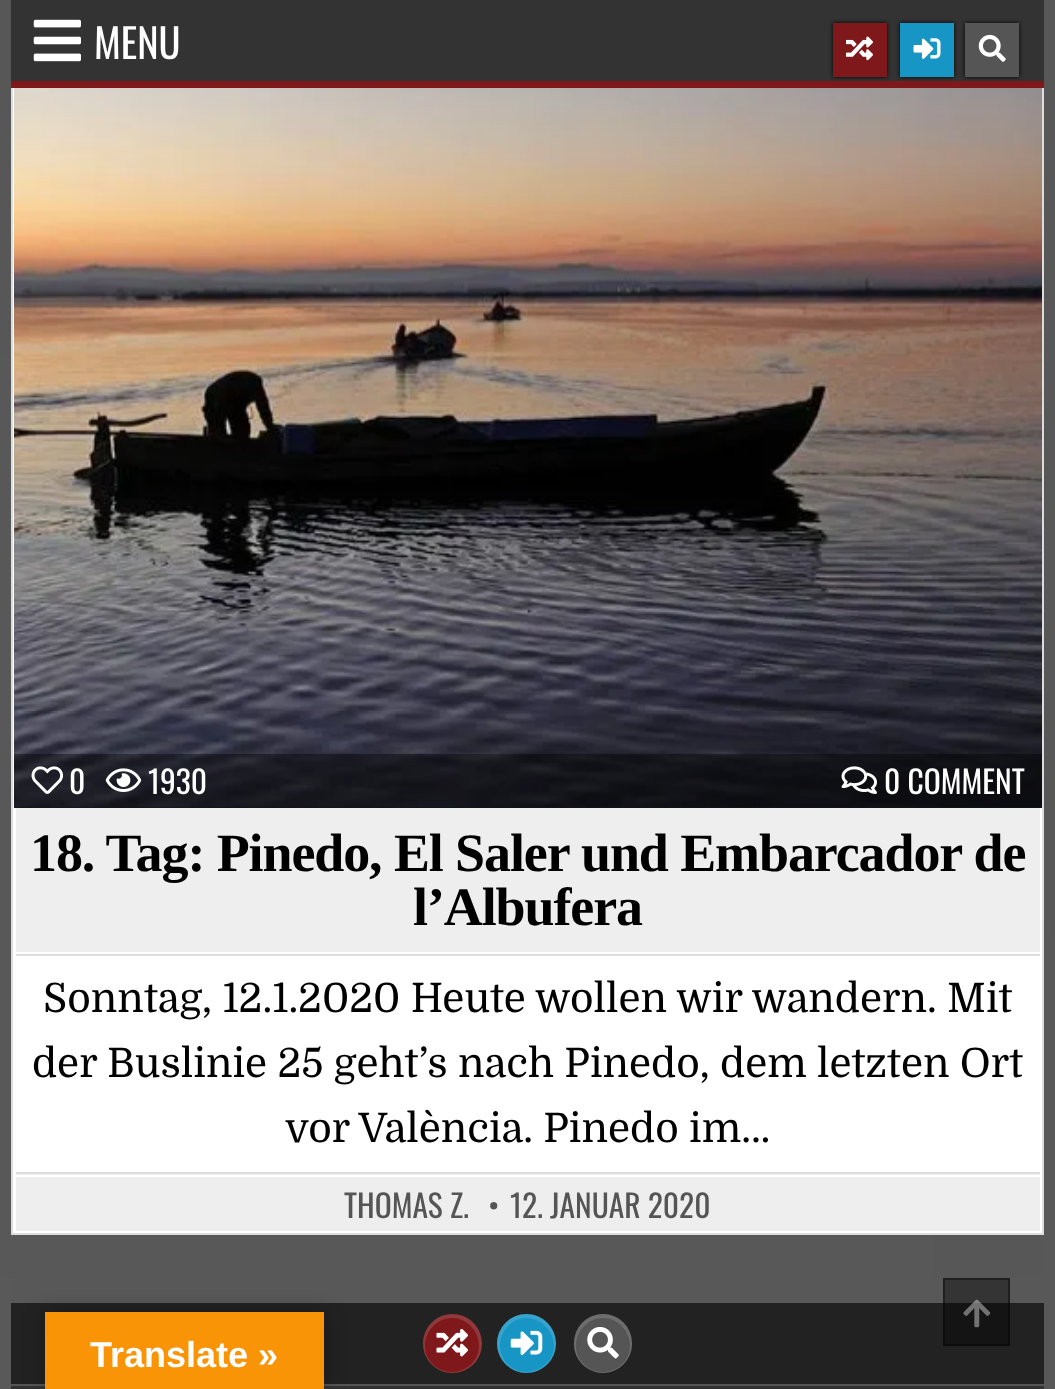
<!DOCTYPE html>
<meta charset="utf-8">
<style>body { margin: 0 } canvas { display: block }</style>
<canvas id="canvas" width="1055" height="1389"></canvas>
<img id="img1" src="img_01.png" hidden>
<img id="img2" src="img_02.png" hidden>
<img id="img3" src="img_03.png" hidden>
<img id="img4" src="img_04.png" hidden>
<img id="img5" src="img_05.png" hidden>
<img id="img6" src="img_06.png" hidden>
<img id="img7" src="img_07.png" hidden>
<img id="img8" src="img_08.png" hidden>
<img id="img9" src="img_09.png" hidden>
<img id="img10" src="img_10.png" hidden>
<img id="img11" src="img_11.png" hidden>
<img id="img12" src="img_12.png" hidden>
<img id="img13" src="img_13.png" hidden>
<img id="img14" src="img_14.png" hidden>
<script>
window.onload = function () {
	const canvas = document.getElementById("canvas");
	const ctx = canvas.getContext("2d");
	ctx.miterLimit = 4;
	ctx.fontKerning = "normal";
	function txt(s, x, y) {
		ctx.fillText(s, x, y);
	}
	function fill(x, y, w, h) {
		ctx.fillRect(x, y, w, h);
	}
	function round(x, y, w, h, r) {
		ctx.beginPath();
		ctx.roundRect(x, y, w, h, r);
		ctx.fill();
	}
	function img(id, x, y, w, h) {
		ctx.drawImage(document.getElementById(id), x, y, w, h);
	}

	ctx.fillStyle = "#FFFFFF";
	fill(0, 0, 1055, 1389);
	img("img1", 0, 0, 1055, 1389);
	fill(13, 88, 1029, 1145);
	ctx.strokeStyle = "#DDDDDD";
	ctx.lineWidth = 2;
	ctx.strokeRect(12, -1, 1031, 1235);
	ctx.fillStyle = "#333333";
	fill(11, 0, 1033, 81);
	ctx.fillStyle = "#7F181B";
	fill(11, 81, 1033, 7);
	img("img2", 33, 19, 48, 43);
	ctx.fillStyle = "#000000";
	ctx.filter = "blur(2px)";
	ctx.beginPath();
	ctx.rect(833, 23, 54, 54);
	ctx.fill();
	ctx.filter = "none";
	ctx.fillStyle = "#7F181B";
	fill(833, 23, 54, 54);
	img("img3", 846, 36, 27, 25);
	ctx.fillStyle = "#000000";
	ctx.filter = "blur(2px)";
	ctx.beginPath();
	ctx.rect(900, 23, 54, 54);
	ctx.fill();
	ctx.filter = "none";
	ctx.fillStyle = "#1796C6";
	fill(900, 23, 54, 54);
	img("img4", 913, 38, 28, 21);
	ctx.fillStyle = "#000000";
	ctx.filter = "blur(2px)";
	ctx.beginPath();
	ctx.rect(965, 23, 54, 54);
	ctx.fill();
	ctx.filter = "none";
	ctx.fillStyle = "#555555";
	fill(965, 23, 54, 54);
	img("img5", 978, 34, 28, 28);
	ctx.fillStyle = "#1E2B34";
	fill(14, 806, 1028, 2);
	img("img6", 14, 806, 1028, 2);
	img("img7", 14, 88, 1028, 720);
	ctx.fillStyle = "rgba(0, 0, 0, 0.4)";
	fill(14, 754, 1028, 54);
	img("img8", 31, 766, 33, 28);
	img("img9", 105, 768, 37, 24);
	img("img10", 841, 766, 36, 28);
	ctx.fillStyle = "#EEEEEE";
	fill(16, 808, 1024, 144);
	ctx.fillStyle = "#DDDDDD";
	fill(16, 954, 1024, 2);
	ctx.fillStyle = "#EEEEEE";
	fill(16, 1174, 1024, 57);
	ctx.fillStyle = "#DDDDDD";
	fill(16, 1172, 1024, 2);
	ctx.fillStyle = "#FFFFFF";
	fill(16, 1175, 1024, 2);
	ctx.fillStyle = "#222222";
	fill(11, 1303, 1033, 81);
	ctx.fillStyle = "rgba(0, 0, 0, 0.4)";
	fill(943, 1278, 67, 68);
	ctx.strokeStyle = "rgba(0, 0, 0, 0.4)";
	ctx.strokeRect(944, 1279, 65, 66);
	img("img11", 963, 1299, 28, 29);
	ctx.fillStyle = "#7F181B";
	ctx.beginPath();
	ctx.arc(452.5, 1343.5, 29.5, 0, Math.PI * 2);
	ctx.fill();
	ctx.fillStyle = "rgba(255, 255, 255, 0.14)";
	ctx.beginPath();
	ctx.moveTo(452, 1314);
	ctx.bezierCurveTo(436, 1314, 423, 1327, 423, 1344);
	ctx.bezierCurveTo(423, 1360, 436, 1373, 452, 1373);
	ctx.bezierCurveTo(469, 1373, 482, 1360, 482, 1344);
	ctx.bezierCurveTo(482, 1327, 469, 1314, 452, 1314);
	ctx.closePath();
	ctx.moveTo(452, 1318);
	ctx.bezierCurveTo(437, 1318, 425, 1331, 425, 1346);
	ctx.bezierCurveTo(425, 1360, 437, 1372, 452, 1372);
	ctx.bezierCurveTo(467, 1372, 479, 1360, 479, 1346);
	ctx.bezierCurveTo(479, 1331, 467, 1318, 452, 1318);
	ctx.closePath();
	ctx.fill("evenodd");
	img("img12", 436, 1328, 32, 29);
	ctx.fillStyle = "#1796C6";
	ctx.beginPath();
	ctx.arc(526.5, 1343.5, 29.5, 0, Math.PI * 2);
	ctx.fill();
	ctx.fillStyle = "rgba(255, 255, 255, 0.14)";
	ctx.beginPath();
	ctx.moveTo(526, 1314);
	ctx.bezierCurveTo(510, 1314, 497, 1327, 497, 1344);
	ctx.bezierCurveTo(497, 1360, 510, 1373, 526, 1373);
	ctx.bezierCurveTo(543, 1373, 556, 1360, 556, 1344);
	ctx.bezierCurveTo(556, 1327, 543, 1314, 526, 1314);
	ctx.closePath();
	ctx.moveTo(526, 1318);
	ctx.bezierCurveTo(512, 1318, 500, 1331, 500, 1346);
	ctx.bezierCurveTo(500, 1360, 512, 1372, 526, 1372);
	ctx.bezierCurveTo(541, 1372, 554, 1360, 554, 1346);
	ctx.bezierCurveTo(554, 1331, 541, 1318, 526, 1318);
	ctx.closePath();
	ctx.fill("evenodd");
	img("img13", 510, 1330, 33, 25);
	ctx.fillStyle = "#555555";
	round(574, 1314, 58, 59, 29);
	ctx.fillStyle = "rgba(255, 255, 255, 0.14)";
	ctx.beginPath();
	ctx.moveTo(603, 1314);
	ctx.bezierCurveTo(574, 1314, 563, 1352, 587, 1368);
	ctx.bezierCurveTo(592, 1371, 597, 1373, 603, 1373);
	ctx.bezierCurveTo(609, 1373, 614, 1371, 619, 1368);
	ctx.bezierCurveTo(643, 1352, 632, 1314, 603, 1314);
	ctx.closePath();
	ctx.moveTo(603, 1318);
	ctx.bezierCurveTo(588, 1318, 576, 1331, 576, 1346);
	ctx.bezierCurveTo(576, 1360, 588, 1372, 603, 1372);
	ctx.bezierCurveTo(618, 1372, 630, 1360, 630, 1346);
	ctx.bezierCurveTo(630, 1331, 618, 1318, 603, 1318);
	ctx.closePath();
	ctx.fill("evenodd");
	img("img14", 587, 1327, 32, 32);
	ctx.fillStyle = "#333333";
	fill(11, 1386, 1033, 3);
	ctx.fillStyle = "#555555";
	fill(11, 1384, 1033, 2);
	ctx.fillStyle = "rgba(0, 0, 0, 0.3)";
	ctx.filter = "blur(10px)";
	ctx.beginPath();
	ctx.rect(45, 1312, 279, 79);
	ctx.fill();
	ctx.filter = "none";
	ctx.fillStyle = "#F89406";
	fill(45, 1312, 279, 77);
	ctx.font = "40.5px Oswald";
	ctx.fillStyle = "#FFFFFF";
	txt("MENU", 94, 59);
	ctx.font = "31.5px Oswald";
	txt("0", 69, 794);
	txt("1930", 148, 794);
	txt("0 COMMENT", 884, 794);
	ctx.letterSpacing = "-1.1px";
	ctx.font = "bold 54px Liberation Serif";
	ctx.fillStyle = "#000000";
	txt("18. Tag: Pinedo, El Saler und Embarcador de", 30, 871);
	txt("l’Albufera", 413, 925);
	ctx.letterSpacing = "0px";
	ctx.font = "40.5px Domine";
	txt("Sonntag, 12.1.2020 Heute wollen wir wandern. Mit", 43, 1012);
	txt("der Buslinie 25 geht’s nach Pinedo, dem letzten Ort", 32, 1077);
	txt("vor València. Pinedo im…", 285, 1142);
	ctx.font = "31.5px Oswald";
	ctx.fillStyle = "#555555";
	txt("THOMAS Z.", 344, 1218);
	txt("•", 488, 1218);
	txt("12. JANUAR 2020", 510, 1218);
	ctx.font = "bold 36px Liberation Sans";
	ctx.fillStyle = "#FFFFFF";
	txt("Translate »", 90, 1367);
};
</script>
